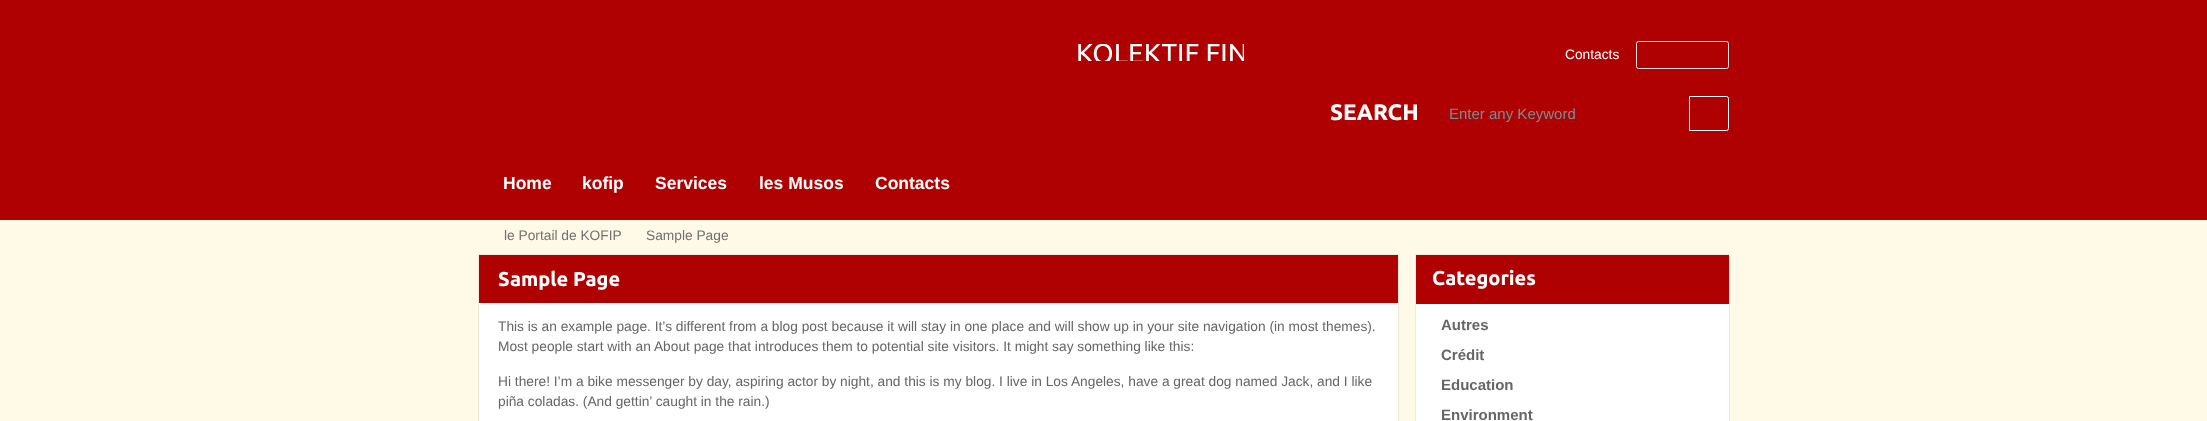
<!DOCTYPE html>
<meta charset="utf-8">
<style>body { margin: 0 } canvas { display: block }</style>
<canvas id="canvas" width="2207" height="421"></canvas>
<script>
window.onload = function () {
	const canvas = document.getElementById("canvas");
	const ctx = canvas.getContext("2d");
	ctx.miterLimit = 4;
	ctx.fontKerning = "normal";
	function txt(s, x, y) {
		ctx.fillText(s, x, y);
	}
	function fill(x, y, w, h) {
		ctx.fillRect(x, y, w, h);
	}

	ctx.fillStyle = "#FFFAE7";
	fill(0, 0, 2207, 421);
	ctx.fillStyle = "#AF0101";
	fill(0, 0, 2207, 220);
	ctx.beginPath();
	ctx.roundRect(1636.5, 41.5, 92, 27, 2);
	ctx.strokeStyle = "#E1E1E1";
	ctx.stroke();
	ctx.beginPath();
	ctx.roundRect(1689.5, 96.5, 39, 34, [0, 2, 2, 0]);
	ctx.strokeStyle = "#FFFFFF";
	ctx.stroke();
	ctx.fillStyle = "#EEE9D8";
	ctx.filter = "blur(0.5px)";
	ctx.beginPath();
	ctx.rect(478, 254, 921, 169);
	ctx.fill();
	ctx.filter = "none";
	ctx.fillStyle = "#FFFFFF";
	fill(479, 303, 919, 118);
	ctx.fillStyle = "#AF0101";
	fill(479, 255, 919, 48);
	ctx.fillStyle = "#EEE9D8";
	ctx.filter = "blur(0.5px)";
	ctx.beginPath();
	ctx.rect(1415, 254, 315, 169);
	ctx.fill();
	ctx.filter = "none";
	ctx.fillStyle = "#FFFFFF";
	fill(1416, 304, 313, 117);
	ctx.fillStyle = "#AF0101";
	fill(1416, 255, 313, 49);
	ctx.save();
	ctx.beginPath();
	ctx.rect(906, 44, 338, 17);
	ctx.clip();
	ctx.font = "27.5px Ubuntu";
	ctx.fillStyle = "#FFFFFF";
	txt("KOLEKTIF FIN", 1076, 63);
	ctx.restore();
	ctx.font = "13.75px Liberation Sans";
	ctx.fillStyle = "#FFFFFF";
	txt("Contacts", 1565, 59);
	ctx.font = "bold 22.5px Ubuntu";
	txt("SEARCH", 1330, 120);
	ctx.font = "15px Liberation Sans";
	ctx.fillStyle = "#798E94";
	txt("Enter any Keyword", 1449, 119);
	ctx.font = "bold 17.5px Liberation Sans";
	ctx.fillStyle = "#FFFFFF";
	txt("Home", 503, 189);
	txt("kofip", 582, 189);
	txt("Services", 655, 189);
	txt("les Musos", 759, 189);
	txt("Contacts", 875, 189);
	ctx.font = "13.75px Liberation Sans";
	ctx.fillStyle = "#717171";
	txt("le Portail de KOFIP", 504, 240);
	txt("Sample Page", 646, 240);
	ctx.font = "bold 20px Ubuntu";
	ctx.fillStyle = "#FFFFFF";
	txt("Sample Page", 498, 286);
	ctx.font = "13.75px Liberation Sans";
	ctx.fillStyle = "#666666";
	txt("This is an example page. It’s different from a blog post because it will stay in one place and will show up in your site navigation (in most themes).", 498, 331);
	txt("Most people start with an About page that introduces them to potential site visitors. It might say something like this:", 498, 351);
	txt("Hi there! I’m a bike messenger by day, aspiring actor by night, and this is my blog. I live in Los Angeles, have a great dog named Jack, and I like", 498, 386);
	txt("piña coladas. (And gettin’ caught in the rain.)", 498, 406);
	ctx.font = "bold 20px Ubuntu";
	ctx.fillStyle = "#FFFFFF";
	txt("Categories", 1432, 285);
	ctx.font = "bold 15px Liberation Sans";
	ctx.fillStyle = "#666666";
	txt("Autres", 1441, 330);
	txt("Crédit", 1441, 360);
	txt("Education", 1441, 390);
	txt("Environment", 1441, 420);
};
</script>
